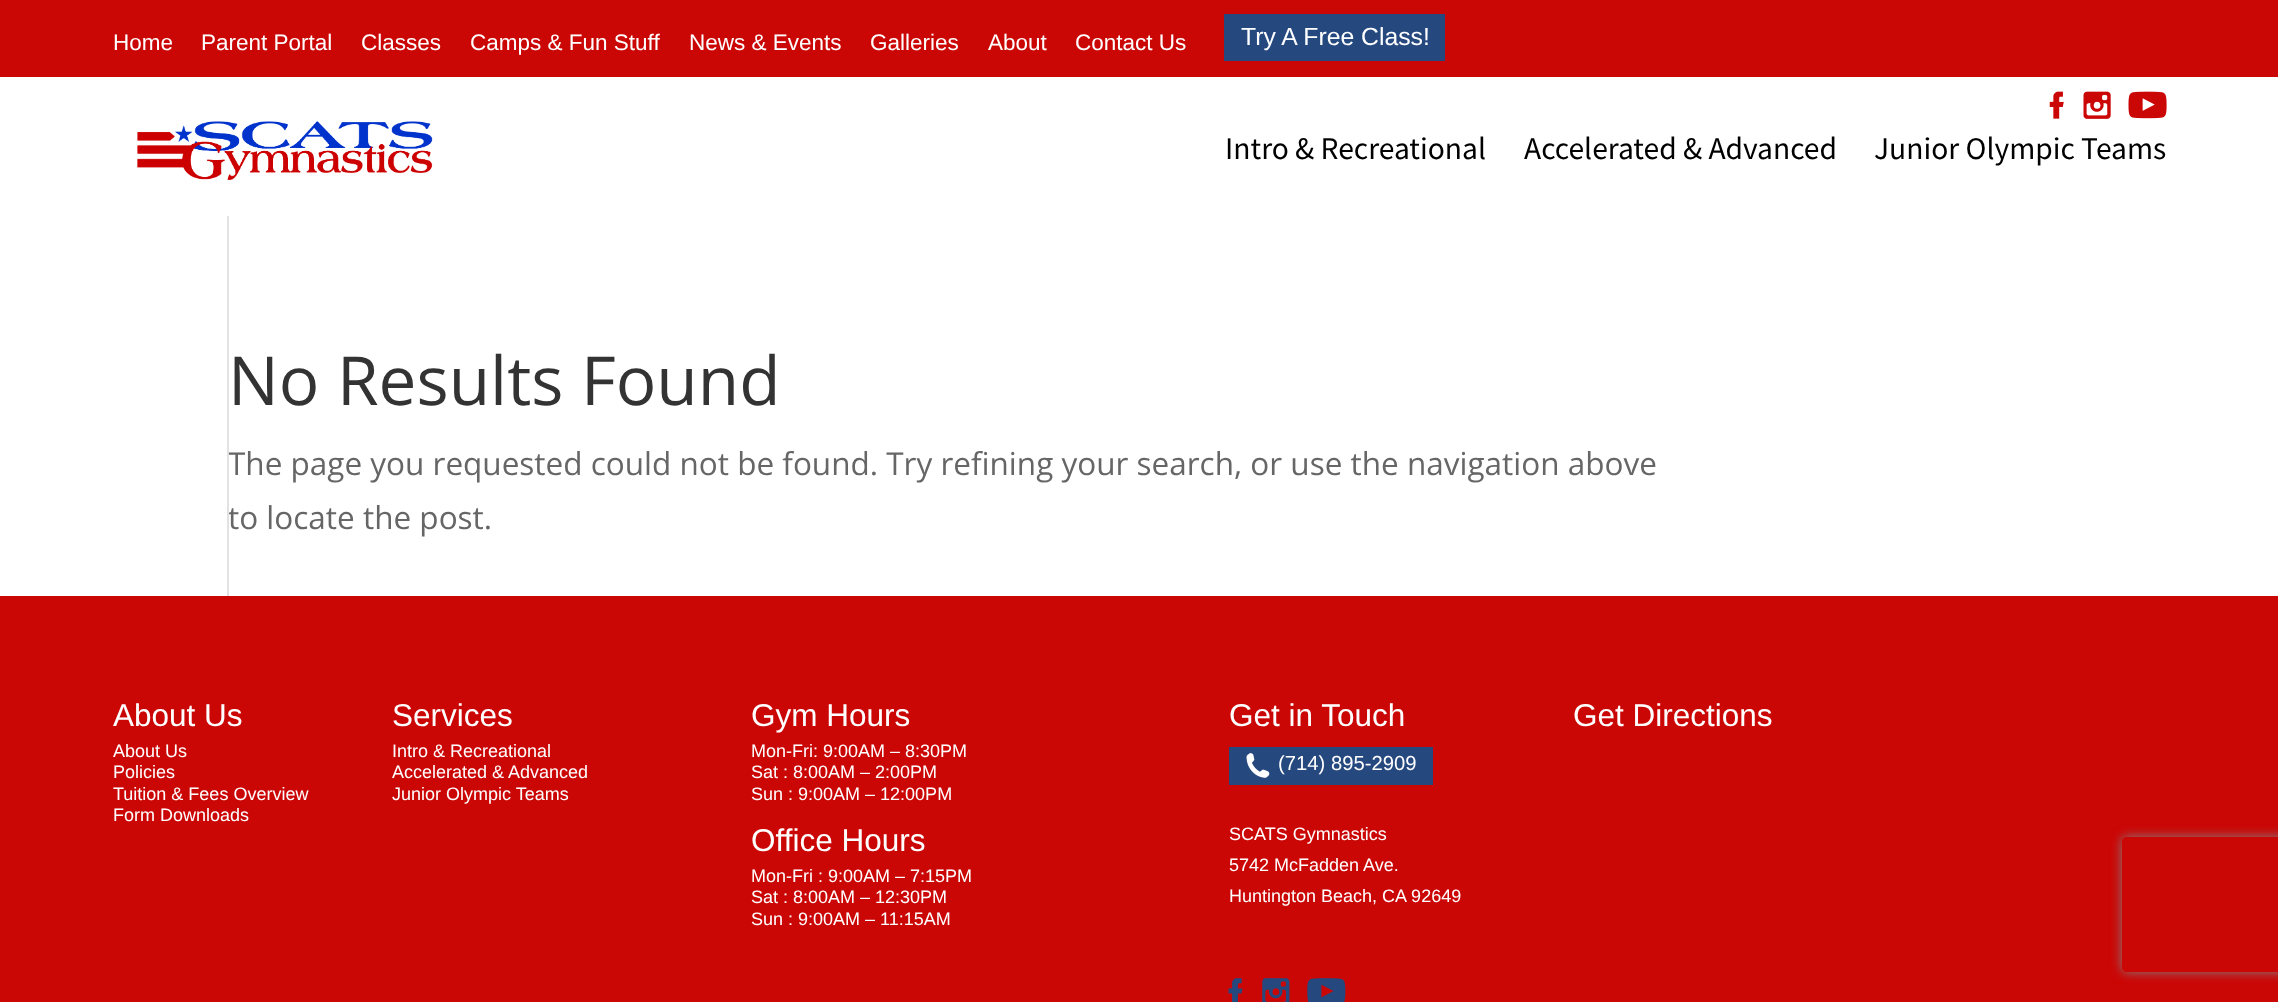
<!DOCTYPE html>
<meta charset="utf-8">
<style>body { margin: 0 } canvas { display: block }</style>
<canvas id="canvas" width="2278" height="1002"></canvas>
<img id="img1" src="img_01.png" hidden>
<img id="img2" src="img_02.png" hidden>
<img id="img3" src="img_03.png" hidden>
<img id="img4" src="img_04.png" hidden>
<img id="img5" src="img_05.png" hidden>
<img id="img6" src="img_06.png" hidden>
<img id="img7" src="img_07.png" hidden>
<img id="img8" src="img_08.png" hidden>
<script>
window.onload = function () {
	const canvas = document.getElementById("canvas");
	const ctx = canvas.getContext("2d");
	ctx.miterLimit = 4;
	ctx.fontKerning = "normal";
	function txt(s, x, y) {
		ctx.fillText(s, x, y);
	}
	function fill(x, y, w, h) {
		ctx.fillRect(x, y, w, h);
	}
	function img(id, x, y, w, h) {
		ctx.drawImage(document.getElementById(id), x, y, w, h);
	}

	ctx.fillStyle = "#CB0706";
	fill(0, 0, 2278, 1002);
	ctx.fillStyle = "#FFFFFF";
	fill(0, 77, 2278, 519);
	ctx.fillStyle = "#25487F";
	fill(1224, 14, 221, 47);
	img("img1", 2049, 91, 15, 28);
	img("img2", 2083, 91, 28, 28);
	img("img3", 2128, 91, 39, 28);
	img("img4", 137, 121, 296, 59);
	fill(1229, 747, 204, 38);
	img("img5", 1246, 753, 24, 25);
	img("img6", 1228, 978, 15, 24);
	img("img7", 1262, 978, 28, 24);
	img("img8", 1307, 978, 39, 24);
	ctx.save();
	ctx.beginPath();
	ctx.moveTo(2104, 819);
	ctx.lineTo(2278, 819);
	ctx.lineTo(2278, 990);
	ctx.lineTo(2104, 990);
	ctx.closePath();
	ctx.moveTo(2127, 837);
	ctx.lineTo(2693, 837);
	ctx.bezierCurveTo(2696, 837, 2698, 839, 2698, 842);
	ctx.lineTo(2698, 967);
	ctx.bezierCurveTo(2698, 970, 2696, 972, 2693, 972);
	ctx.lineTo(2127, 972);
	ctx.bezierCurveTo(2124, 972, 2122, 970, 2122, 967);
	ctx.lineTo(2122, 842);
	ctx.bezierCurveTo(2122, 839, 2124, 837, 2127, 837);
	ctx.closePath();
	ctx.clip("evenodd");
	ctx.fillStyle = "#808080";
	ctx.filter = "blur(5.5px)";
	ctx.beginPath();
	ctx.roundRect(2122, 837, 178, 135, 5);
	ctx.fill();
	ctx.filter = "none";
	ctx.restore();
	ctx.font = "22.5px Liberation Sans";
	ctx.fillStyle = "#FFFFFF";
	txt("Home", 113, 50);
	txt("Parent Portal", 201, 50);
	txt("Classes", 361, 50);
	txt("Camps & Fun Stuff", 470, 50);
	txt("News & Events", 689, 50);
	txt("Galleries", 870, 50);
	txt("About", 988, 50);
	txt("Contact Us", 1075, 50);
	ctx.font = "24.75px Liberation Sans";
	txt("Try A Free Class!", 1241, 45);
	ctx.font = "31.5px Source Sans Pro";
	ctx.fillStyle = "#000000";
	txt("Intro & Recreational", 1225, 159);
	txt("Accelerated & Advanced", 1524, 159);
	txt("Junior Olympic Teams", 1874, 159);
	ctx.font = "67.5px Open Sans";
	ctx.fillStyle = "#333333";
	txt("No Results Found", 228, 405);
	ctx.font = "31.5px Open Sans";
	ctx.fillStyle = "#666666";
	txt("The page you requested could not be found. Try refining your search, or use the navigation above", 228, 475);
	txt("to locate the post.", 228, 529);
	ctx.fillStyle = "#E2E2E2";
	fill(227, 216, 2, 380);
	ctx.font = "31.5px Liberation Sans";
	ctx.fillStyle = "#FFFFFF";
	txt("About Us", 113, 726);
	ctx.font = "18px Liberation Sans";
	txt("About Us", 113, 757);
	txt("Policies", 113, 778);
	txt("Tuition & Fees Overview", 113, 800);
	txt("Form Downloads", 113, 821);
	ctx.font = "31.5px Liberation Sans";
	txt("Services", 392, 726);
	ctx.font = "18px Liberation Sans";
	txt("Intro & Recreational", 392, 757);
	txt("Accelerated & Advanced", 392, 778);
	txt("Junior Olympic Teams", 392, 800);
	ctx.font = "31.5px Liberation Sans";
	txt("Gym Hours", 751, 726);
	ctx.font = "18px Liberation Sans";
	txt("Mon-Fri: 9:00AM – 8:30PM", 751, 757);
	txt("Sat : 8:00AM – 2:00PM", 751, 778);
	txt("Sun : 9:00AM – 12:00PM", 751, 800);
	ctx.font = "31.5px Liberation Sans";
	txt("Office Hours", 751, 851);
	ctx.font = "18px Liberation Sans";
	txt("Mon-Fri : 9:00AM – 7:15PM", 751, 882);
	txt("Sat : 8:00AM – 12:30PM", 751, 903);
	txt("Sun : 9:00AM – 11:15AM", 751, 925);
	ctx.font = "31.5px Liberation Sans";
	txt("Get in Touch", 1229, 726);
	ctx.font = "20.25px Liberation Sans";
	txt("(714) 895-2909", 1278, 770);
	ctx.font = "18px Liberation Sans";
	txt("SCATS Gymnastics", 1229, 840);
	txt("5742 McFadden Ave.", 1229, 871);
	txt("Huntington Beach, CA 92649", 1229, 902);
	ctx.font = "31.5px Liberation Sans";
	txt("Get Directions", 1573, 726);
};
</script>
